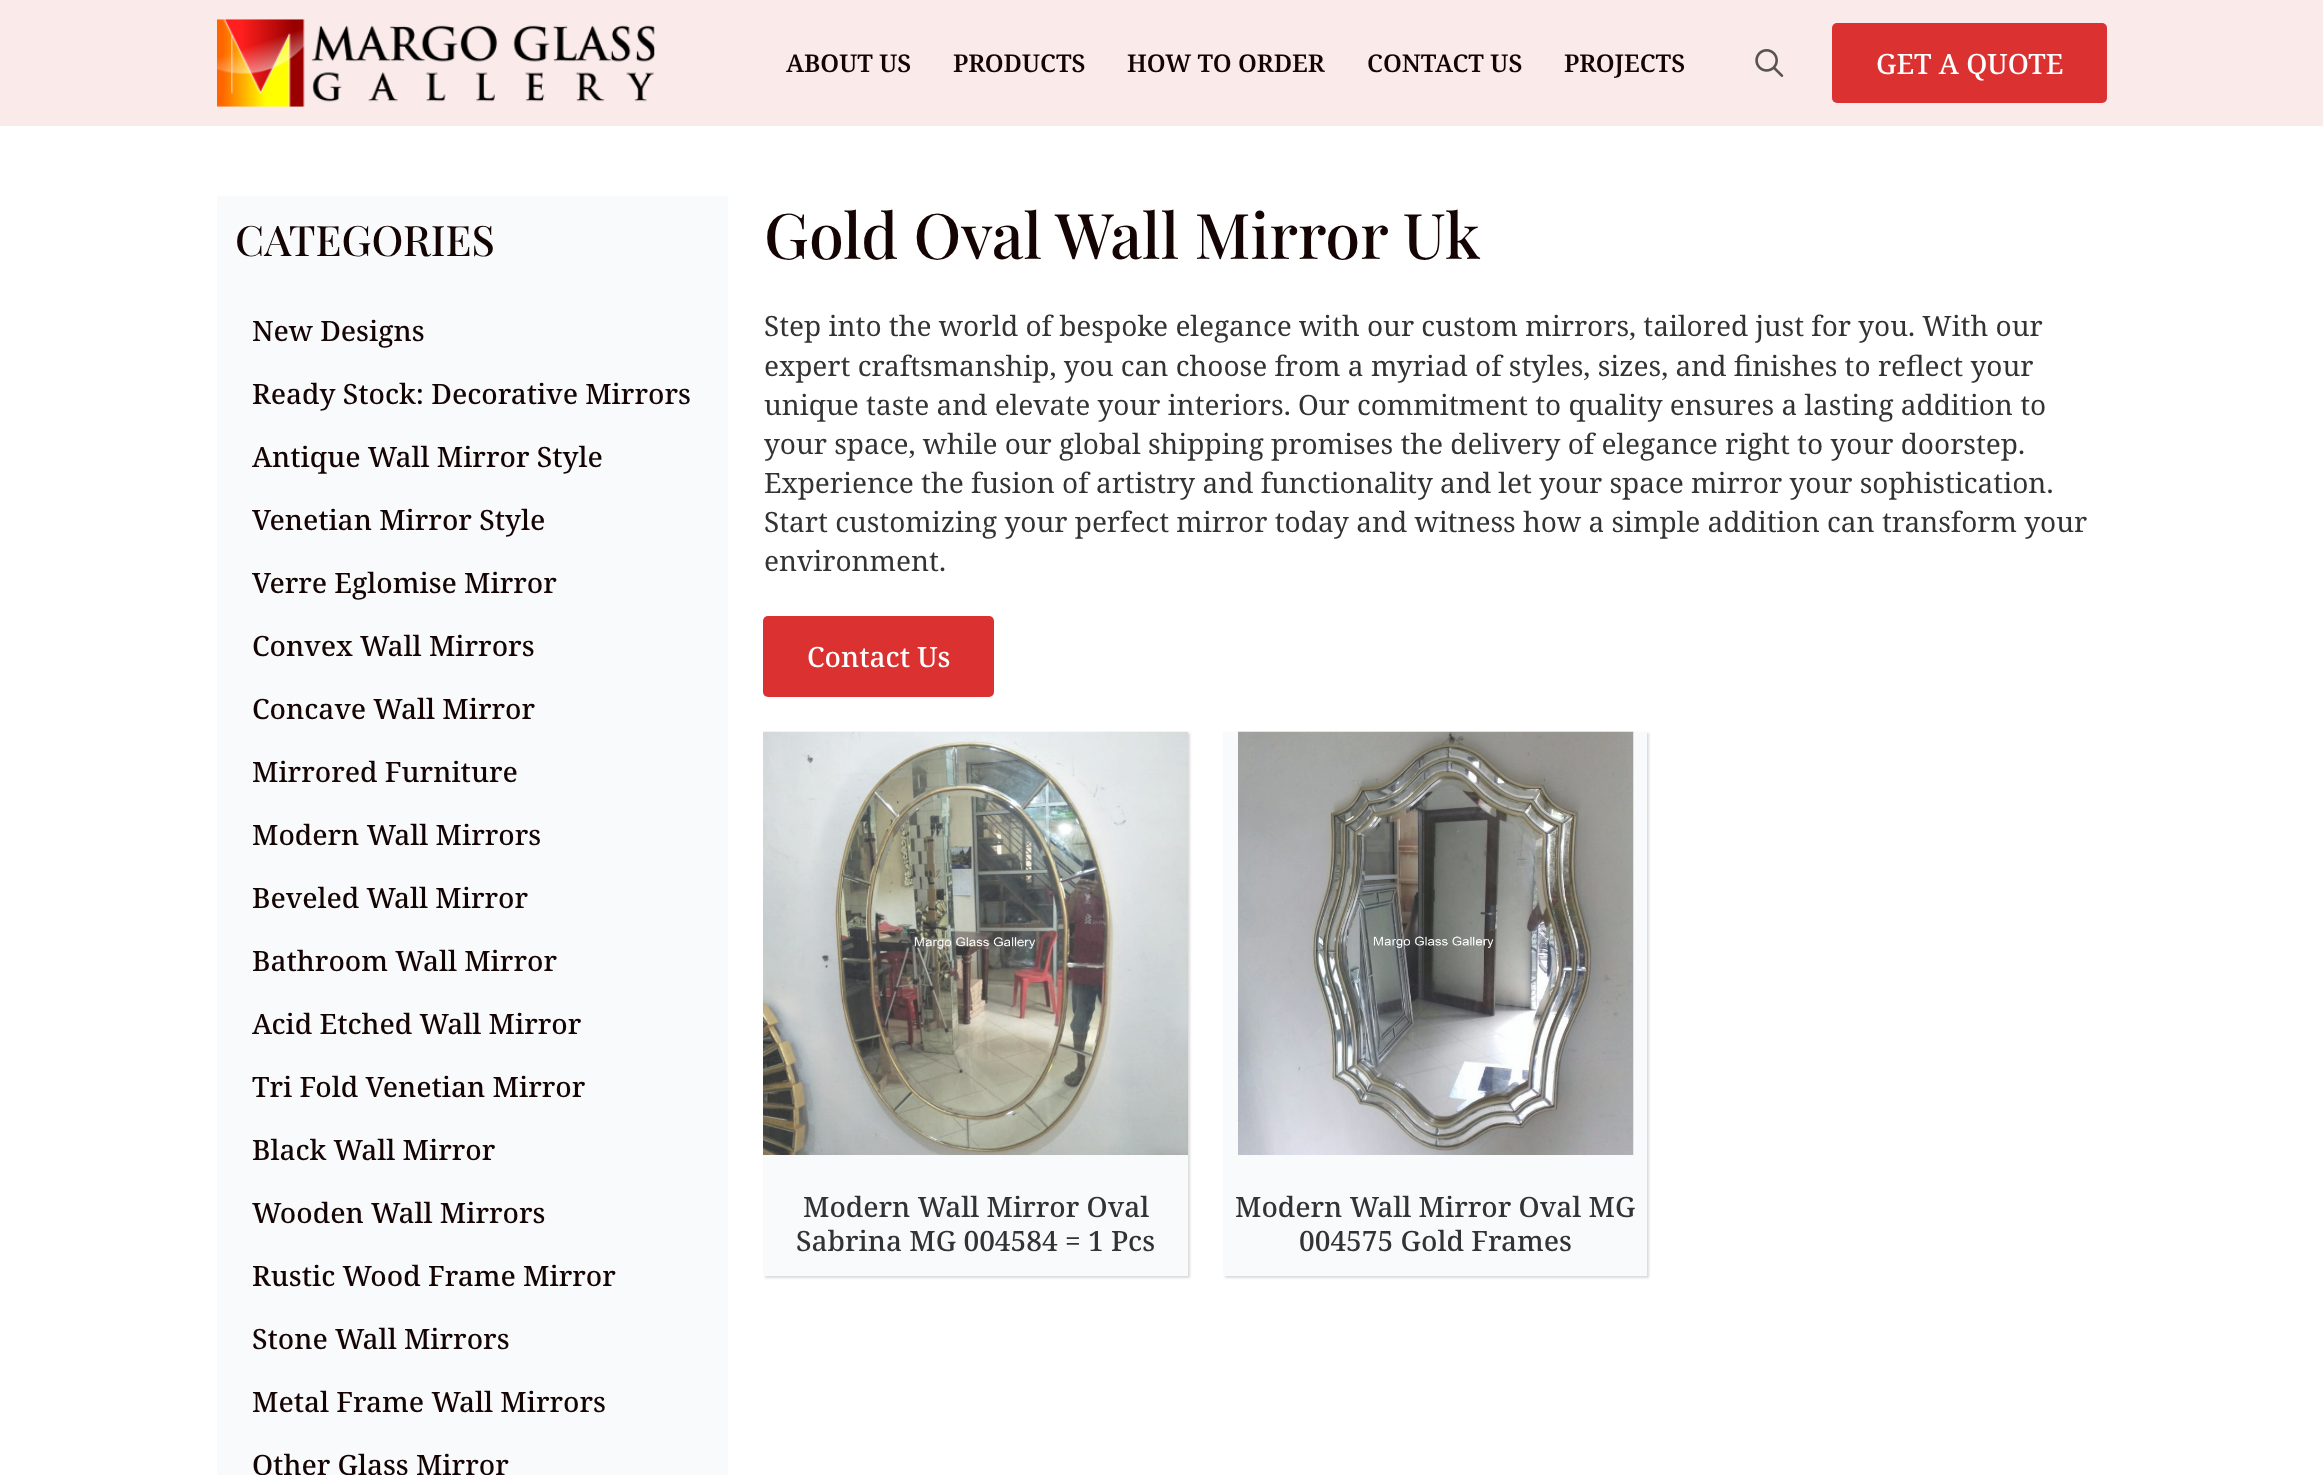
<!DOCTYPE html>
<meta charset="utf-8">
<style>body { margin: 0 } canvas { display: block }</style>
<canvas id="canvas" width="2323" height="1475"></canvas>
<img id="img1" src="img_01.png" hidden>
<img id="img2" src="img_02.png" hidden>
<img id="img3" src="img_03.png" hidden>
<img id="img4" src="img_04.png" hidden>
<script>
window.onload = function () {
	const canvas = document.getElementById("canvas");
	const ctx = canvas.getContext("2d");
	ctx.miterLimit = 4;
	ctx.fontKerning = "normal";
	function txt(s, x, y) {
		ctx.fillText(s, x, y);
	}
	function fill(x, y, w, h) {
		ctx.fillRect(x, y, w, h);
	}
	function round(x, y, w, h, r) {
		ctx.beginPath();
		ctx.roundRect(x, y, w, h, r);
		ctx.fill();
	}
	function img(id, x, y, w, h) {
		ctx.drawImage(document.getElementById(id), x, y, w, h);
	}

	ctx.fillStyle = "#FFFFFF";
	fill(0, 0, 2323, 1475);
	ctx.fillStyle = "#FBEAEA";
	fill(0, 0, 2323, 126);
	img("img1", 217, 19, 438, 88);
	img("img2", 1755, 49, 29, 28);
	ctx.fillStyle = "#DB3131";
	round(1832, 23, 275, 80, 5);
	ctx.fillStyle = "#F9FAFB";
	fill(217, 196, 511, 1279);
	ctx.fillStyle = "#DB3131";
	round(763, 616, 231, 81, 5);
	ctx.fillStyle = "rgba(0, 0, 0, 0.14)";
	ctx.filter = "blur(1px)";
	ctx.beginPath();
	ctx.rect(765, 733, 425, 545);
	ctx.fill();
	ctx.filter = "none";
	ctx.fillStyle = "#F9FAFB";
	fill(763, 732, 425, 544);
	img("img3", 763, 731, 425, 424);
	ctx.fillStyle = "rgba(0, 0, 0, 0.14)";
	ctx.filter = "blur(1px)";
	ctx.beginPath();
	ctx.rect(1225, 733, 424, 545);
	ctx.fill();
	ctx.filter = "none";
	ctx.fillStyle = "#F9FAFB";
	fill(1223, 732, 424, 544);
	img("img4", 1238, 731, 396, 424);
	ctx.font = "600 24.5px Noto Serif";
	ctx.fillStyle = "#150404";
	txt("ABOUT US", 786, 72);
	txt("PRODUCTS", 953, 72);
	txt("HOW TO ORDER", 1127, 72);
	txt("CONTACT US", 1367, 72);
	txt("PROJECTS", 1564, 72);
	ctx.font = "500 28px Noto Serif";
	ctx.fillStyle = "#FFFFFF";
	txt("GET A QUOTE", 1876, 74);
	ctx.font = "500 42px Playfair Display";
	ctx.fillStyle = "#150404";
	txt("CATEGORIES", 235, 256);
	ctx.font = "500 28px Noto Serif";
	txt("New Designs", 252, 341);
	txt("Ready Stock: Decorative Mirrors", 252, 404);
	txt("Antique Wall Mirror Style", 252, 467);
	txt("Venetian Mirror Style", 252, 530);
	txt("Verre Eglomise Mirror", 252, 593);
	txt("Convex Wall Mirrors", 252, 656);
	txt("Concave Wall Mirror", 252, 719);
	txt("Mirrored Furniture", 252, 782);
	txt("Modern Wall Mirrors", 252, 845);
	txt("Beveled Wall Mirror", 252, 908);
	txt("Bathroom Wall Mirror", 252, 971);
	txt("Acid Etched Wall Mirror", 252, 1034);
	txt("Tri Fold Venetian Mirror", 252, 1097);
	txt("Black Wall Mirror", 252, 1160);
	txt("Wooden Wall Mirrors", 252, 1223);
	txt("Rustic Wood Frame Mirror", 252, 1286);
	txt("Stone Wall Mirrors", 252, 1349);
	txt("Metal Frame Wall Mirrors", 252, 1412);
	txt("Other Glass Mirror", 252, 1475);
	ctx.font = "500 63px Playfair Display";
	txt("Gold Oval Wall Mirror Uk", 764, 259);
	ctx.font = "28px Noto Serif";
	ctx.fillStyle = "#333333";
	txt("Step into the world of bespoke elegance with our custom mirrors, tailored just for you. With our", 764, 336);
	txt("expert craftsmanship, you can choose from a myriad of styles, sizes, and finishes to reflect your", 764, 376);
	txt("unique taste and elevate your interiors. Our commitment to quality ensures a lasting addition to", 764, 415);
	txt("your space, while our global shipping promises the delivery of elegance right to your doorstep.", 764, 454);
	txt("Experience the fusion of artistry and functionality and let your space mirror your sophistication.", 764, 493);
	txt("Start customizing your perfect mirror today and witness how a simple addition can transform your", 764, 532);
	txt("environment.", 764, 571);
	ctx.font = "500 28px Noto Serif";
	ctx.fillStyle = "#FFFFFF";
	txt("Contact Us", 807, 667);
	ctx.fillStyle = "#333333";
	txt("Modern Wall Mirror Oval", 803, 1217);
	txt("Sabrina MG 004584 = 1 Pcs", 796, 1251);
	txt("Modern Wall Mirror Oval MG", 1235, 1217);
	txt("004575 Gold Frames", 1299, 1251);
};
</script>
